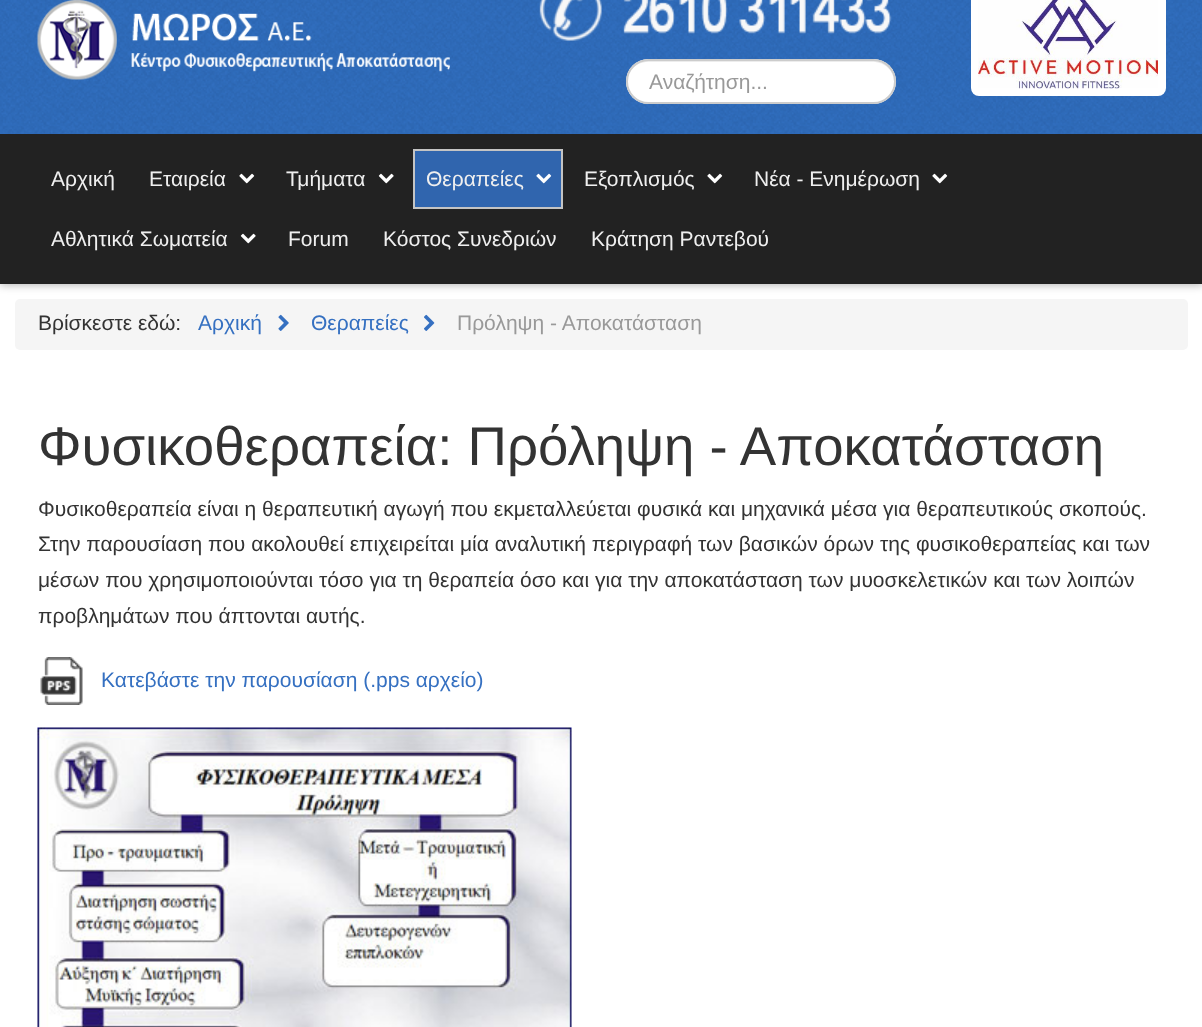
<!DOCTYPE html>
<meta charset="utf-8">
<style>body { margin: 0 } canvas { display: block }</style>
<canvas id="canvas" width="1202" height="1027"></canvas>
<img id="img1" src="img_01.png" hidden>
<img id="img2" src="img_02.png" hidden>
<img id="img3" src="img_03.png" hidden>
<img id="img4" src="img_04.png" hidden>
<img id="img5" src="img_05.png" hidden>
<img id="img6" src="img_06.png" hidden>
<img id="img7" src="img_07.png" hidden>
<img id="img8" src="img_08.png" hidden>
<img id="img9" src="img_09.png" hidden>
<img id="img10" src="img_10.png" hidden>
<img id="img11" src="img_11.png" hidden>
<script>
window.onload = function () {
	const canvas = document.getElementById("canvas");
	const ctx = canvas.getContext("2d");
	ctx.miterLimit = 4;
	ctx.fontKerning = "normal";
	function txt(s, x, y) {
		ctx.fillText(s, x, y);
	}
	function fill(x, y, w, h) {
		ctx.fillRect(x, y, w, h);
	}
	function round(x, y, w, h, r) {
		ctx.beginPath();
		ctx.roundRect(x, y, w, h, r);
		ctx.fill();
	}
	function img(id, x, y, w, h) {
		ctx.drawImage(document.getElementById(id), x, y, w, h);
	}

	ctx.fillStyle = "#FFFFFF";
	fill(0, 0, 1202, 1027);
	ctx.fillStyle = "rgba(0, 0, 0, 0.3)";
	ctx.filter = "blur(4px)";
	ctx.beginPath();
	ctx.rect(0, -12, 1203, 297);
	ctx.fill();
	ctx.filter = "none";
	img("img1", 0, 0, 1202, 134);
	img("img2", 37, 0, 413, 80);
	ctx.fillStyle = "#FFFFFF";
	round(971, -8, 195, 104, 8);
	img("img3", 978, 0, 180, 89);
	img("img4", 539, 0, 353, 41);
	round(626, 59, 270, 45, 22.5);
	ctx.fillStyle = "#ECECEC";
	ctx.beginPath();
	ctx.moveTo(648, 62);
	ctx.lineTo(873, 62);
	ctx.bezierCurveTo(885, 62, 894, 71, 894, 82);
	ctx.bezierCurveTo(895, 52, 851, 60, 836, 60);
	ctx.lineTo(686, 60);
	ctx.bezierCurveTo(670, 60, 626, 52, 627, 82);
	ctx.bezierCurveTo(627, 71, 636, 62, 648, 62);
	ctx.closePath();
	ctx.fill();
	ctx.beginPath();
	ctx.roundRect(627, 60, 268, 43, 21.5);
	ctx.strokeStyle = "#CCCCCC";
	ctx.lineWidth = 2;
	ctx.stroke();
	ctx.fillStyle = "#222222";
	fill(0, 134, 1202, 150);
	img("img5", 239, 173, 16, 11);
	img("img6", 378, 173, 16, 11);
	ctx.fillStyle = "#3065AE";
	ctx.beginPath();
	ctx.rect(414, 150, 148, 58);
	ctx.fill();
	ctx.strokeStyle = "#C4C4C4";
	ctx.stroke();
	img("img7", 536, 173, 16, 11);
	img("img5", 707, 173, 16, 11);
	img("img5", 932, 173, 16, 11);
	img("img6", 240, 233, 16, 11);
	ctx.fillStyle = "#F5F5F5";
	round(15, 299, 1173, 51, 5);
	img("img8", 278, 314, 11, 17);
	img("img9", 424, 314, 11, 17);
	img("img10", 40, 657, 43, 48);
	img("img11", 37, 727, 535, 300);
	ctx.save();
	ctx.beginPath();
	ctx.rect(648, 69, 219, 24);
	ctx.clip();
	ctx.font = "21px Liberation Sans";
	ctx.fillStyle = "#999999";
	txt("Αναζήτηση...", 649, 89);
	ctx.restore();
	ctx.font = "21px Liberation Sans";
	ctx.fillStyle = "#EFEFEF";
	txt("Αρχική", 51, 186);
	txt("Εταιρεία", 149, 186);
	txt("Τμήματα", 286, 186);
	txt("Θεραπείες", 426, 186);
	txt("Εξοπλισμός", 584, 186);
	txt("Νέα - Eνημέρωση", 754, 186);
	txt("Αθλητικά Σωματεία", 51, 246);
	txt("Forum", 288, 246);
	txt("Κόστος Συνεδριών", 383, 246);
	txt("Κράτηση Ραντεβού", 591, 246);
	ctx.fillStyle = "#333333";
	txt("Βρίσκεστε εδώ:", 38, 330);
	ctx.fillStyle = "#3570C1";
	txt("Αρχική", 198, 330);
	txt("Θεραπείες", 311, 330);
	ctx.fillStyle = "#999999";
	txt("Πρόληψη - Αποκατάσταση", 457, 330);
	ctx.font = "54.6px Liberation Sans";
	ctx.fillStyle = "#333333";
	txt("Φυσικοθεραπεία: Πρόληψη - Αποκατάσταση", 38, 465);
	ctx.font = "21px Liberation Sans";
	txt("Φυσικοθεραπεία είναι η θεραπευτική αγωγή που εκμεταλλεύεται φυσικά και μηχανικά μέσα για θεραπευτικούς σκοπούς.", 38, 516);
	txt("Στην παρουσίαση που ακολουθεί επιχειρείται μία αναλυτική περιγραφή των βασικών όρων της φυσικοθεραπείας και των", 38, 551);
	txt("μέσων που χρησιμοποιούνται τόσο για τη θεραπεία όσο και για την αποκατάσταση των μυοσκελετικών και των λοιπών", 38, 587);
	txt("προβλημάτων που άπτονται αυτής.", 38, 623);
	ctx.fillStyle = "#3570C1";
	txt("Κατεβάστε την παρουσίαση (.pps αρχείο)", 101, 687);
};
</script>
